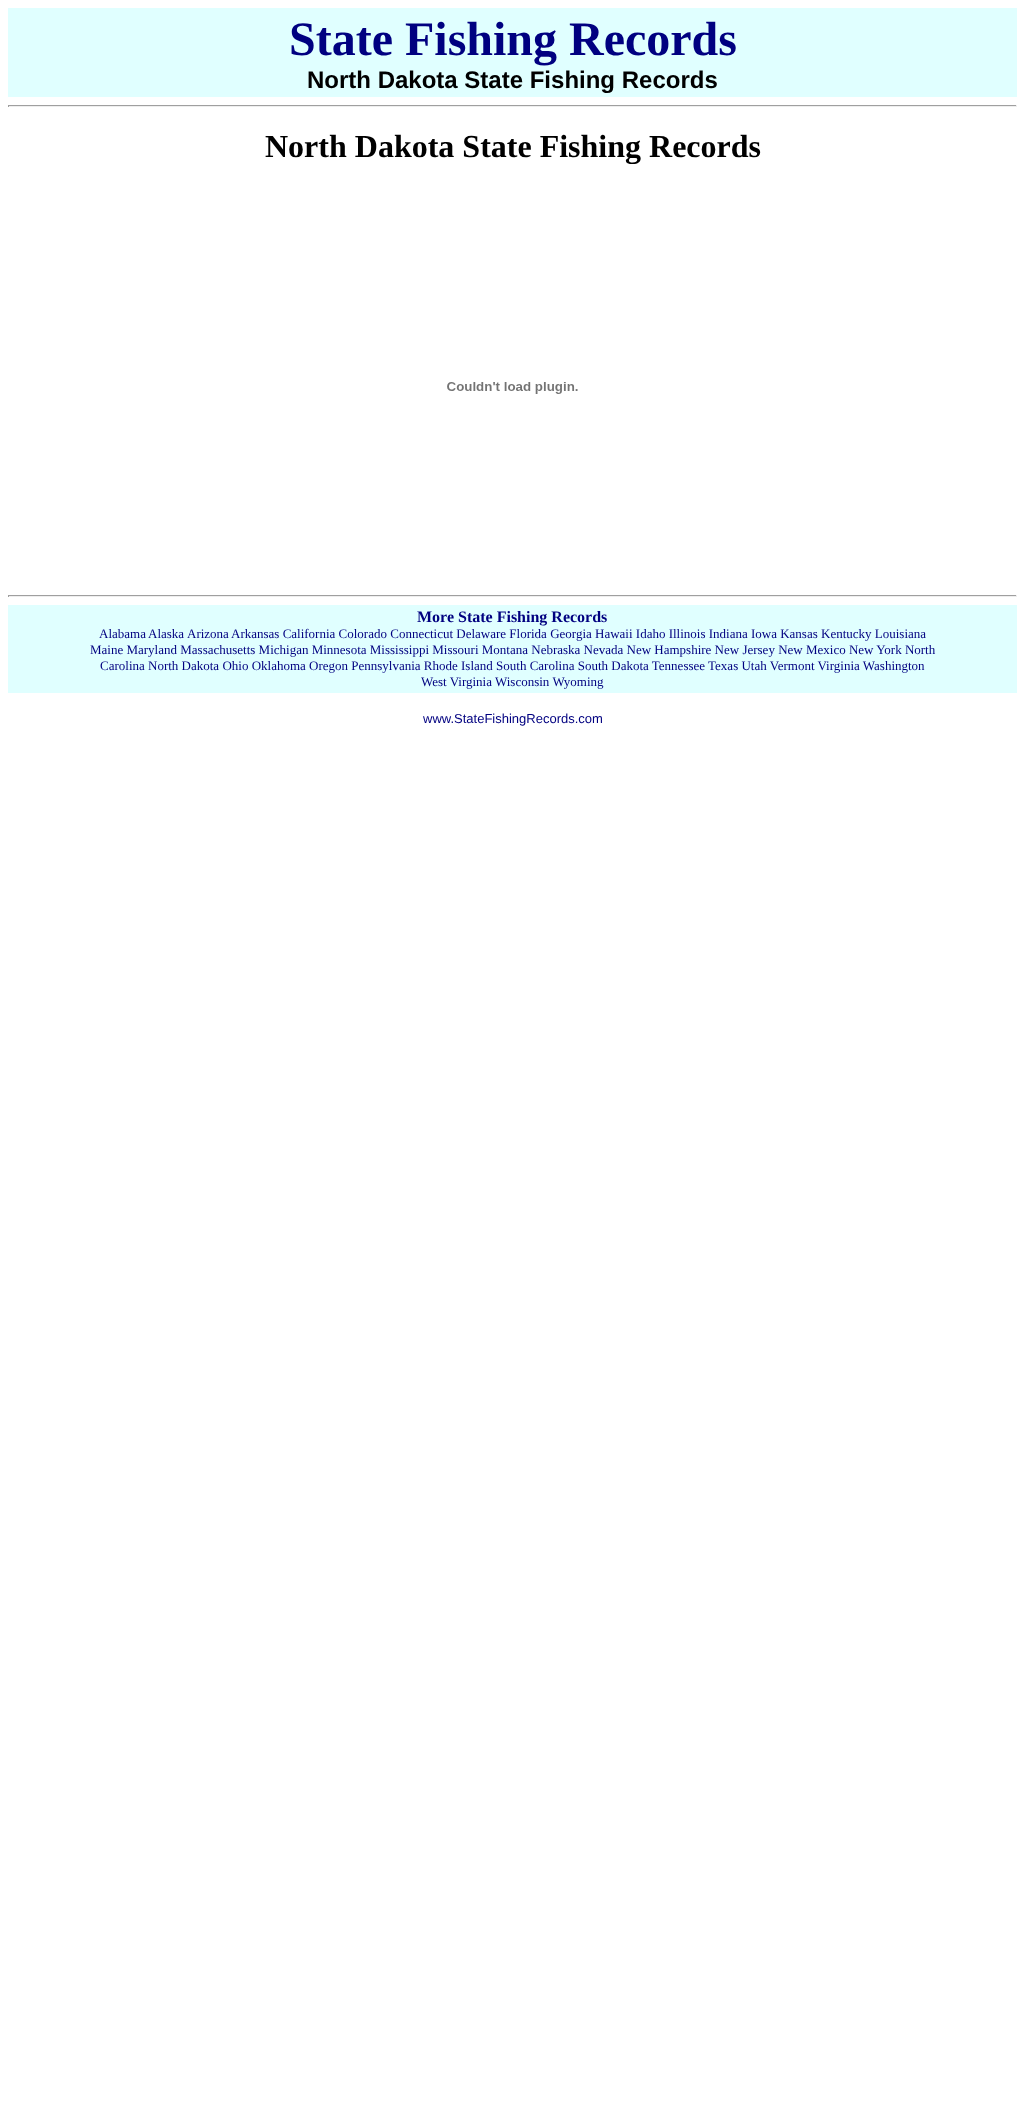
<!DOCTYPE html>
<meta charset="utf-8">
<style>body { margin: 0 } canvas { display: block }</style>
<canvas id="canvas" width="1025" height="2124"></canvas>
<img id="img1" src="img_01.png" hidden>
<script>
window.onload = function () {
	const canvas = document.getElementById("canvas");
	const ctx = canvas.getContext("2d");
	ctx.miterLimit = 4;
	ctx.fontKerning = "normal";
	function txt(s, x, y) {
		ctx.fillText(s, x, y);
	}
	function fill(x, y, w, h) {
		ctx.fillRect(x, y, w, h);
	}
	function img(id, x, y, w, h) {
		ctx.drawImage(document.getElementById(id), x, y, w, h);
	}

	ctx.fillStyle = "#FFFFFF";
	fill(0, 0, 1025, 2124);
	ctx.fillStyle = "#E0FFFF";
	fill(8, 8, 1009, 89);
	ctx.fillStyle = "#9F9F9F";
	fill(8, 105, 1009, 1);
	ctx.fillStyle = "#EEEEEE";
	fill(1016, 105, 1, 2);
	fill(8, 106, 1009, 1);
	ctx.fillStyle = "#9F9F9F";
	fill(8, 105, 1, 2);
	img("img1", 447, 382, 131, 12);
	fill(8, 595, 1009, 1);
	ctx.fillStyle = "#EEEEEE";
	fill(1016, 595, 1, 2);
	fill(8, 596, 1009, 1);
	ctx.fillStyle = "#9F9F9F";
	fill(8, 595, 1, 2);
	ctx.fillStyle = "#E0FFFF";
	fill(8, 605, 1009, 88);
	ctx.font = "bold 48px Liberation Serif";
	ctx.fillStyle = "#000080";
	txt("State Fishing Records", 289, 55);
	ctx.font = "bold 24px Liberation Sans";
	ctx.fillStyle = "#000000";
	txt("North Dakota State Fishing Records", 307, 88);
	ctx.font = "bold 32px Liberation Serif";
	txt("North Dakota State Fishing Records", 265, 157);
	ctx.font = "bold 16px Liberation Serif";
	ctx.fillStyle = "#000080";
	txt("More State Fishing Records", 417, 622);
	ctx.font = "13px Liberation Serif";
	txt("Alabama", 99, 638);
	txt("Alaska", 148, 638);
	txt("Arizona", 187, 638);
	txt("Arkansas California Colorado Connecticut Delaware Florida Georgia Hawaii Idaho Illinois Indiana Iowa Kansas Kentucky Louisiana", 231, 638);
	txt("Maine Maryland Massachusetts Michigan Minnesota Mississippi Missouri Montana Nebraska Nevada New Hampshire New Jersey New Mexico New York North", 90, 654);
	txt("Carolina North Dakota Ohio Oklahoma Oregon Pennsylvania Rhode Island South Carolina South Dakota Tennessee Texas Utah Vermont Virginia Washington", 100, 670);
	txt("West Virginia Wisconsin Wyoming", 421, 686);
	ctx.font = "13px Liberation Sans";
	txt("www.StateFishingRecords.com", 423, 723);
};
</script>
